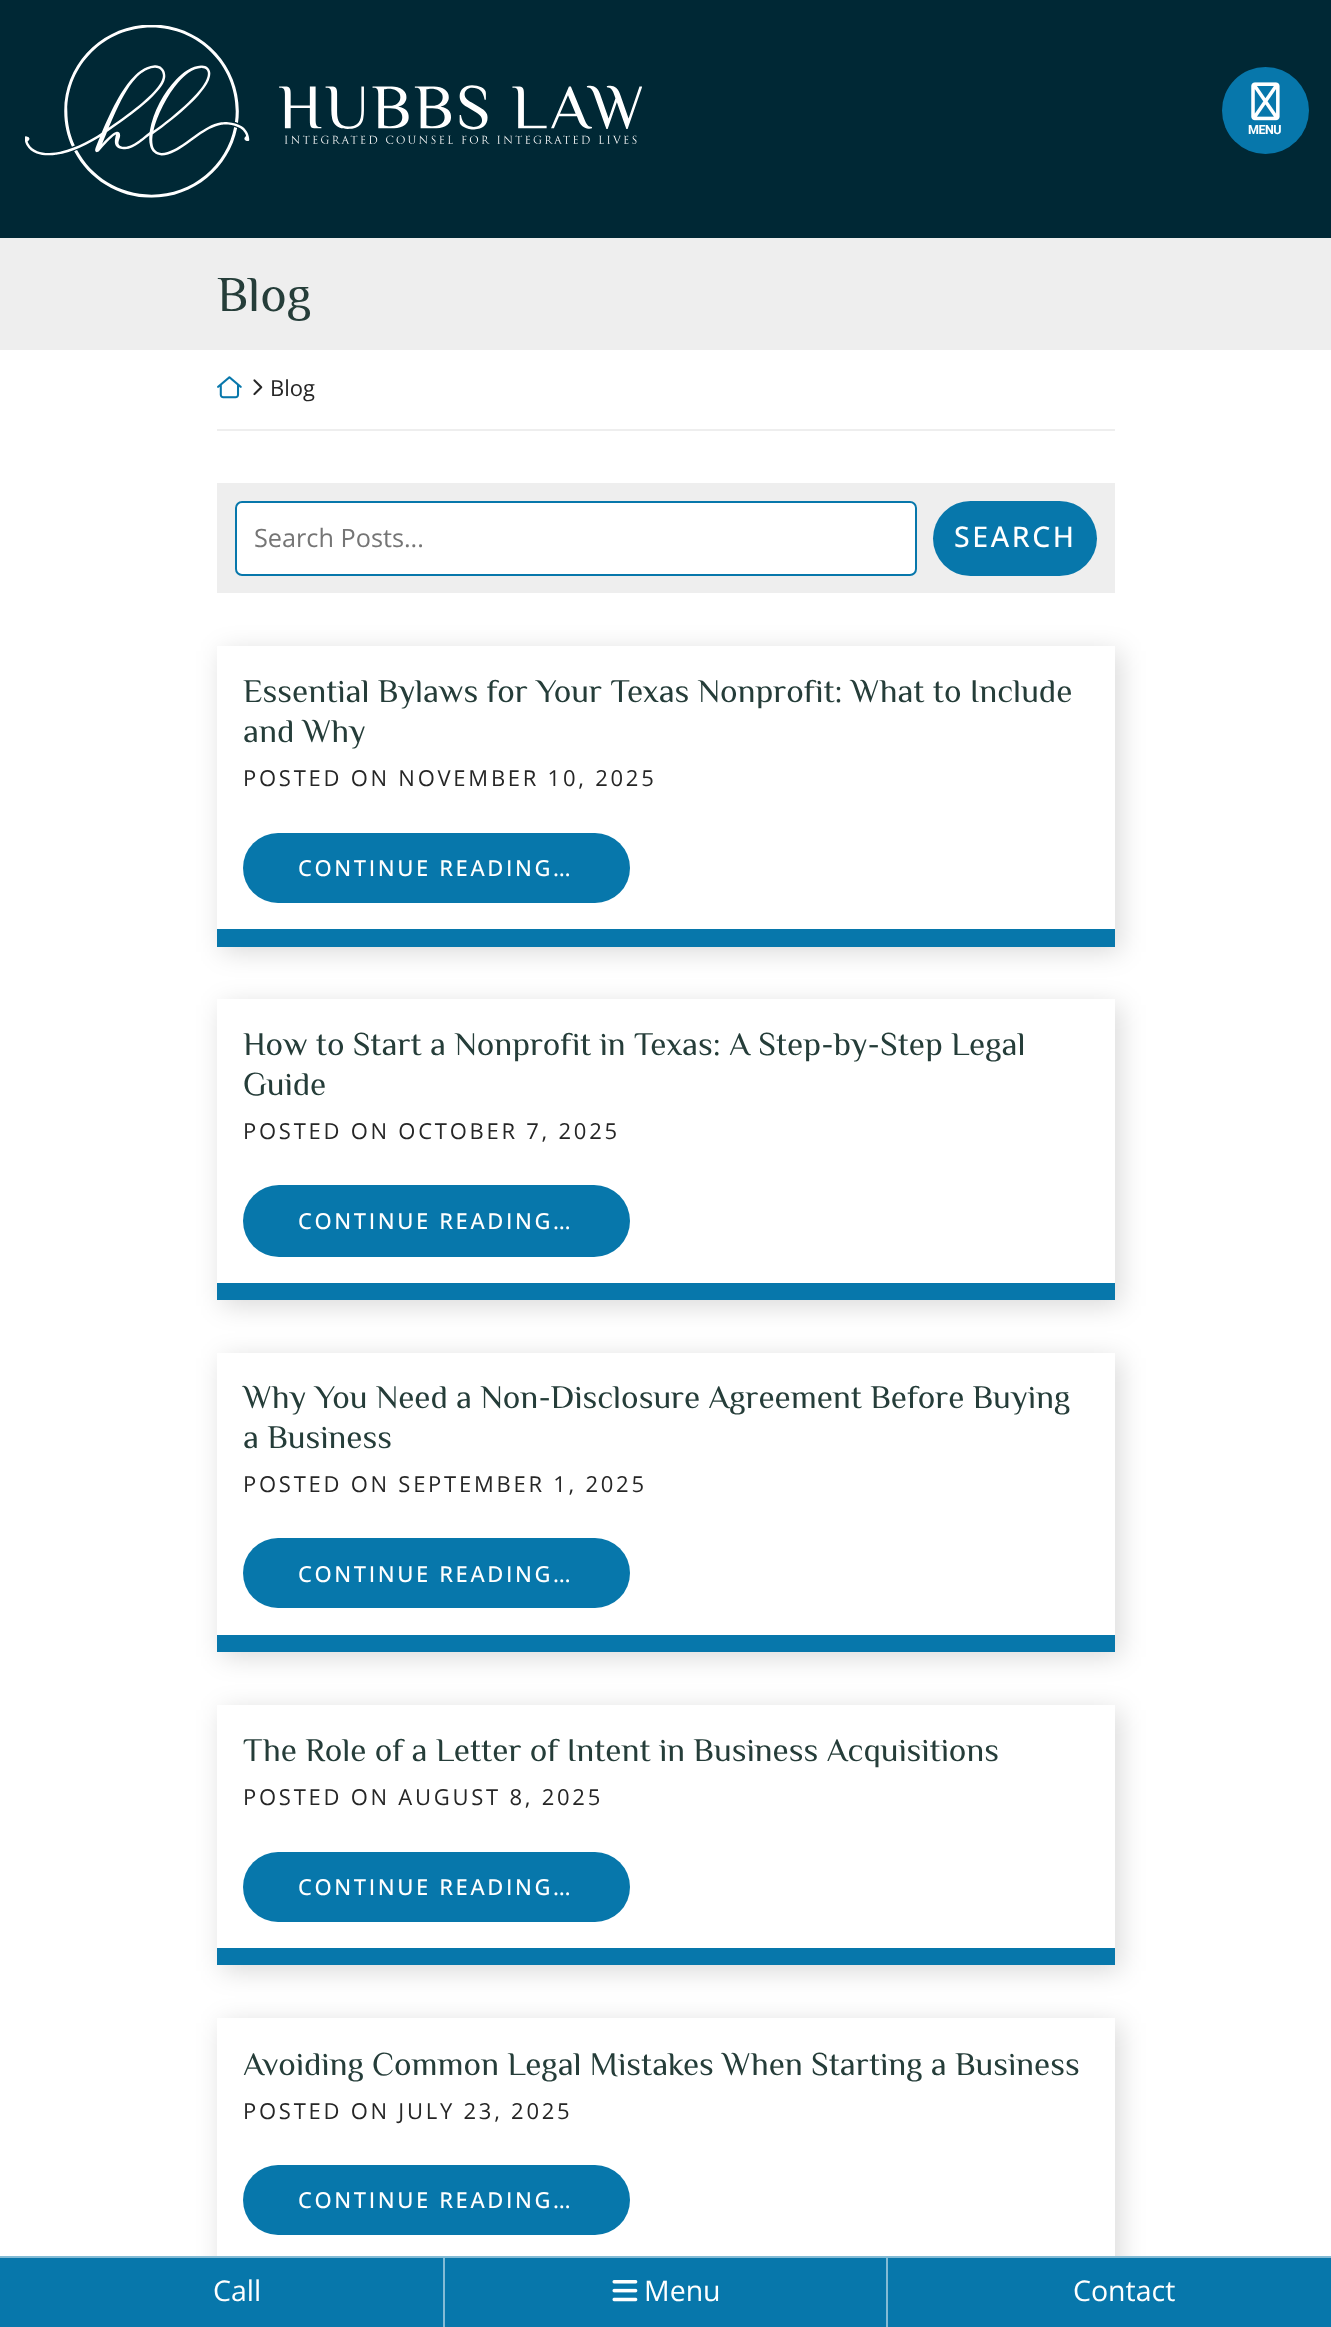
<!DOCTYPE html>
<meta charset="utf-8">
<style>body { margin: 0 } canvas { display: block }</style>
<canvas id="canvas" width="1331" height="2327"></canvas>
<img id="img1" src="img_01.png" hidden>
<img id="img2" src="img_02.png" hidden>
<img id="img3" src="img_03.png" hidden>
<img id="img4" src="img_04.png" hidden>
<img id="img5" src="img_05.png" hidden>
<script>
window.onload = function () {
	const canvas = document.getElementById("canvas");
	const ctx = canvas.getContext("2d");
	ctx.miterLimit = 4;
	ctx.fontKerning = "normal";
	function txt(s, x, y) {
		ctx.fillText(s, x, y);
	}
	function fill(x, y, w, h) {
		ctx.fillRect(x, y, w, h);
	}
	function round(x, y, w, h, r) {
		ctx.beginPath();
		ctx.roundRect(x, y, w, h, r);
		ctx.fill();
	}
	function img(id, x, y, w, h) {
		ctx.drawImage(document.getElementById(id), x, y, w, h);
	}

	ctx.fillStyle = "#FFFFFF";
	fill(0, 0, 1331, 2327);
	ctx.fillStyle = "#002835";
	fill(0, 0, 1331, 238);
	img("img1", 25, 25, 617, 173);
	ctx.fillStyle = "#0777AB";
	ctx.beginPath();
	ctx.arc(1265.5, 110.5, 43.5, 0, Math.PI * 2);
	ctx.fill();
	img("img2", 1251, 82, 29, 39);
	ctx.fillStyle = "#EEEEEE";
	fill(0, 238, 1331, 112);
	fill(217, 429, 898, 2);
	img("img3", 217, 376, 25, 23);
	img("img4", 253, 379, 10, 17);
	fill(217, 483, 898, 110);
	ctx.fillStyle = "#FFFFFF";
	ctx.beginPath();
	ctx.roundRect(236, 502, 680, 73, 6);
	ctx.fill();
	ctx.strokeStyle = "#0777AB";
	ctx.lineWidth = 2;
	ctx.stroke();
	ctx.fillStyle = "#0777AB";
	round(933, 501, 164, 75, 37.5);
	ctx.fillStyle = "rgba(0, 0, 0, 0.15)";
	ctx.filter = "blur(13px)";
	ctx.beginPath();
	ctx.rect(222, 651, 898, 301);
	ctx.fill();
	ctx.filter = "none";
	ctx.fillStyle = "#FFFFFF";
	fill(217, 646, 898, 283);
	ctx.fillStyle = "#0777AB";
	fill(217, 929, 898, 18);
	round(243, 833, 387, 70, 35);
	ctx.fillStyle = "rgba(0, 0, 0, 0.15)";
	ctx.filter = "blur(13px)";
	ctx.beginPath();
	ctx.rect(222, 1005, 898, 301);
	ctx.fill();
	ctx.filter = "none";
	ctx.fillStyle = "#FFFFFF";
	fill(217, 999, 898, 284);
	ctx.fillStyle = "#0777AB";
	fill(217, 1283, 898, 17);
	round(243, 1185, 387, 72, 36);
	ctx.fillStyle = "rgba(0, 0, 0, 0.15)";
	ctx.filter = "blur(13px)";
	ctx.beginPath();
	ctx.rect(222, 1358, 898, 299);
	ctx.fill();
	ctx.filter = "none";
	ctx.fillStyle = "#FFFFFF";
	fill(217, 1353, 898, 282);
	ctx.fillStyle = "#0777AB";
	fill(217, 1635, 898, 17);
	round(243, 1538, 387, 70, 35);
	ctx.fillStyle = "rgba(0, 0, 0, 0.15)";
	ctx.filter = "blur(13px)";
	ctx.beginPath();
	ctx.rect(222, 1710, 898, 261);
	ctx.fill();
	ctx.filter = "none";
	ctx.fillStyle = "#FFFFFF";
	fill(217, 1705, 898, 243);
	ctx.fillStyle = "#0777AB";
	fill(217, 1948, 898, 17);
	round(243, 1852, 387, 70, 35);
	ctx.fillStyle = "rgba(0, 0, 0, 0.15)";
	ctx.filter = "blur(13px)";
	ctx.beginPath();
	ctx.rect(222, 2023, 898, 261);
	ctx.fill();
	ctx.filter = "none";
	ctx.fillStyle = "#FFFFFF";
	fill(217, 2018, 898, 238);
	ctx.fillStyle = "#0777AB";
	round(243, 2165, 387, 70, 35);
	fill(0, 2258, 443, 69);
	ctx.fillStyle = "#83BBD5";
	fill(0, 2256, 1331, 2);
	ctx.fillStyle = "#0777AB";
	fill(445, 2258, 441, 69);
	ctx.fillStyle = "#83BBD5";
	fill(443, 2258, 2, 69);
	img("img5", 612, 2280, 26, 22);
	ctx.fillStyle = "#0777AB";
	fill(888, 2258, 443, 69);
	ctx.fillStyle = "#83BBD5";
	fill(886, 2258, 2, 69);
	ctx.letterSpacing = "-0.5px";
	ctx.font = "bold 12.5px Roboto";
	ctx.fillStyle = "#FFFFFF";
	txt("MENU", 1248, 134);
	ctx.letterSpacing = "0px";
	ctx.font = "50px Philosopher";
	ctx.fillStyle = "#253D39";
	txt("Blog", 217, 311);
	ctx.font = "22px Open Sans";
	ctx.fillStyle = "#262626";
	txt("Blog", 270, 396);
	ctx.font = "25.25px Open Sans";
	ctx.fillStyle = "#757575";
	txt("Search Posts...", 254, 547);
	ctx.letterSpacing = "2.6px";
	ctx.font = "500 28.5px Open Sans";
	ctx.fillStyle = "#FFFFFF";
	txt("SEARCH", 954, 547);
	ctx.letterSpacing = "0px";
	ctx.font = "33.1px Philosopher";
	ctx.fillStyle = "#253D39";
	txt("Essential Bylaws for Your Texas Nonprofit: What to Include", 243, 702);
	txt("and Why", 243, 742);
	ctx.letterSpacing = "2.75px";
	ctx.font = "22px Open Sans";
	ctx.fillStyle = "#262626";
	txt("POSTED ON NOVEMBER 10, 2025", 243, 786);
	ctx.letterSpacing = "2.6px";
	ctx.font = "500 22px Open Sans";
	ctx.fillStyle = "#FFFFFF";
	txt("CONTINUE READING…", 298, 876);
	ctx.letterSpacing = "0px";
	ctx.font = "33.1px Philosopher";
	ctx.fillStyle = "#253D39";
	txt("How to Start a Nonprofit in Texas: A Step-by-Step Legal", 243, 1055);
	txt("Guide", 243, 1095);
	ctx.letterSpacing = "2.75px";
	ctx.font = "22px Open Sans";
	ctx.fillStyle = "#262626";
	txt("POSTED ON OCTOBER 7, 2025", 243, 1139);
	ctx.letterSpacing = "2.6px";
	ctx.font = "500 22px Open Sans";
	ctx.fillStyle = "#FFFFFF";
	txt("CONTINUE READING…", 298, 1229);
	ctx.letterSpacing = "0px";
	ctx.font = "33.1px Philosopher";
	ctx.fillStyle = "#253D39";
	txt("Why You Need a Non-Disclosure Agreement Before Buying", 243, 1408);
	txt("a Business", 243, 1448);
	ctx.letterSpacing = "2.75px";
	ctx.font = "22px Open Sans";
	ctx.fillStyle = "#262626";
	txt("POSTED ON SEPTEMBER 1, 2025", 243, 1492);
	ctx.letterSpacing = "2.6px";
	ctx.font = "500 22px Open Sans";
	ctx.fillStyle = "#FFFFFF";
	txt("CONTINUE READING…", 298, 1582);
	ctx.letterSpacing = "0px";
	ctx.font = "33.1px Philosopher";
	ctx.fillStyle = "#253D39";
	txt("The Role of a Letter of Intent in Business Acquisitions", 243, 1761);
	ctx.letterSpacing = "2.75px";
	ctx.font = "22px Open Sans";
	ctx.fillStyle = "#262626";
	txt("POSTED ON AUGUST 8, 2025", 243, 1805);
	ctx.letterSpacing = "2.6px";
	ctx.font = "500 22px Open Sans";
	ctx.fillStyle = "#FFFFFF";
	txt("CONTINUE READING…", 298, 1895);
	ctx.letterSpacing = "0px";
	ctx.font = "33.1px Philosopher";
	ctx.fillStyle = "#253D39";
	txt("Avoiding Common Legal Mistakes When Starting a Business", 243, 2075);
	ctx.letterSpacing = "2.75px";
	ctx.font = "22px Open Sans";
	ctx.fillStyle = "#262626";
	txt("POSTED ON JULY 23, 2025", 243, 2119);
	ctx.letterSpacing = "2.6px";
	ctx.font = "500 22px Open Sans";
	ctx.fillStyle = "#FFFFFF";
	txt("CONTINUE READING…", 298, 2208);
	ctx.letterSpacing = "0px";
	ctx.font = "28.5px Open Sans";
	txt("Call", 213, 2301);
	txt("Menu", 644, 2301);
	txt("Contact", 1073, 2301);
};
</script>
